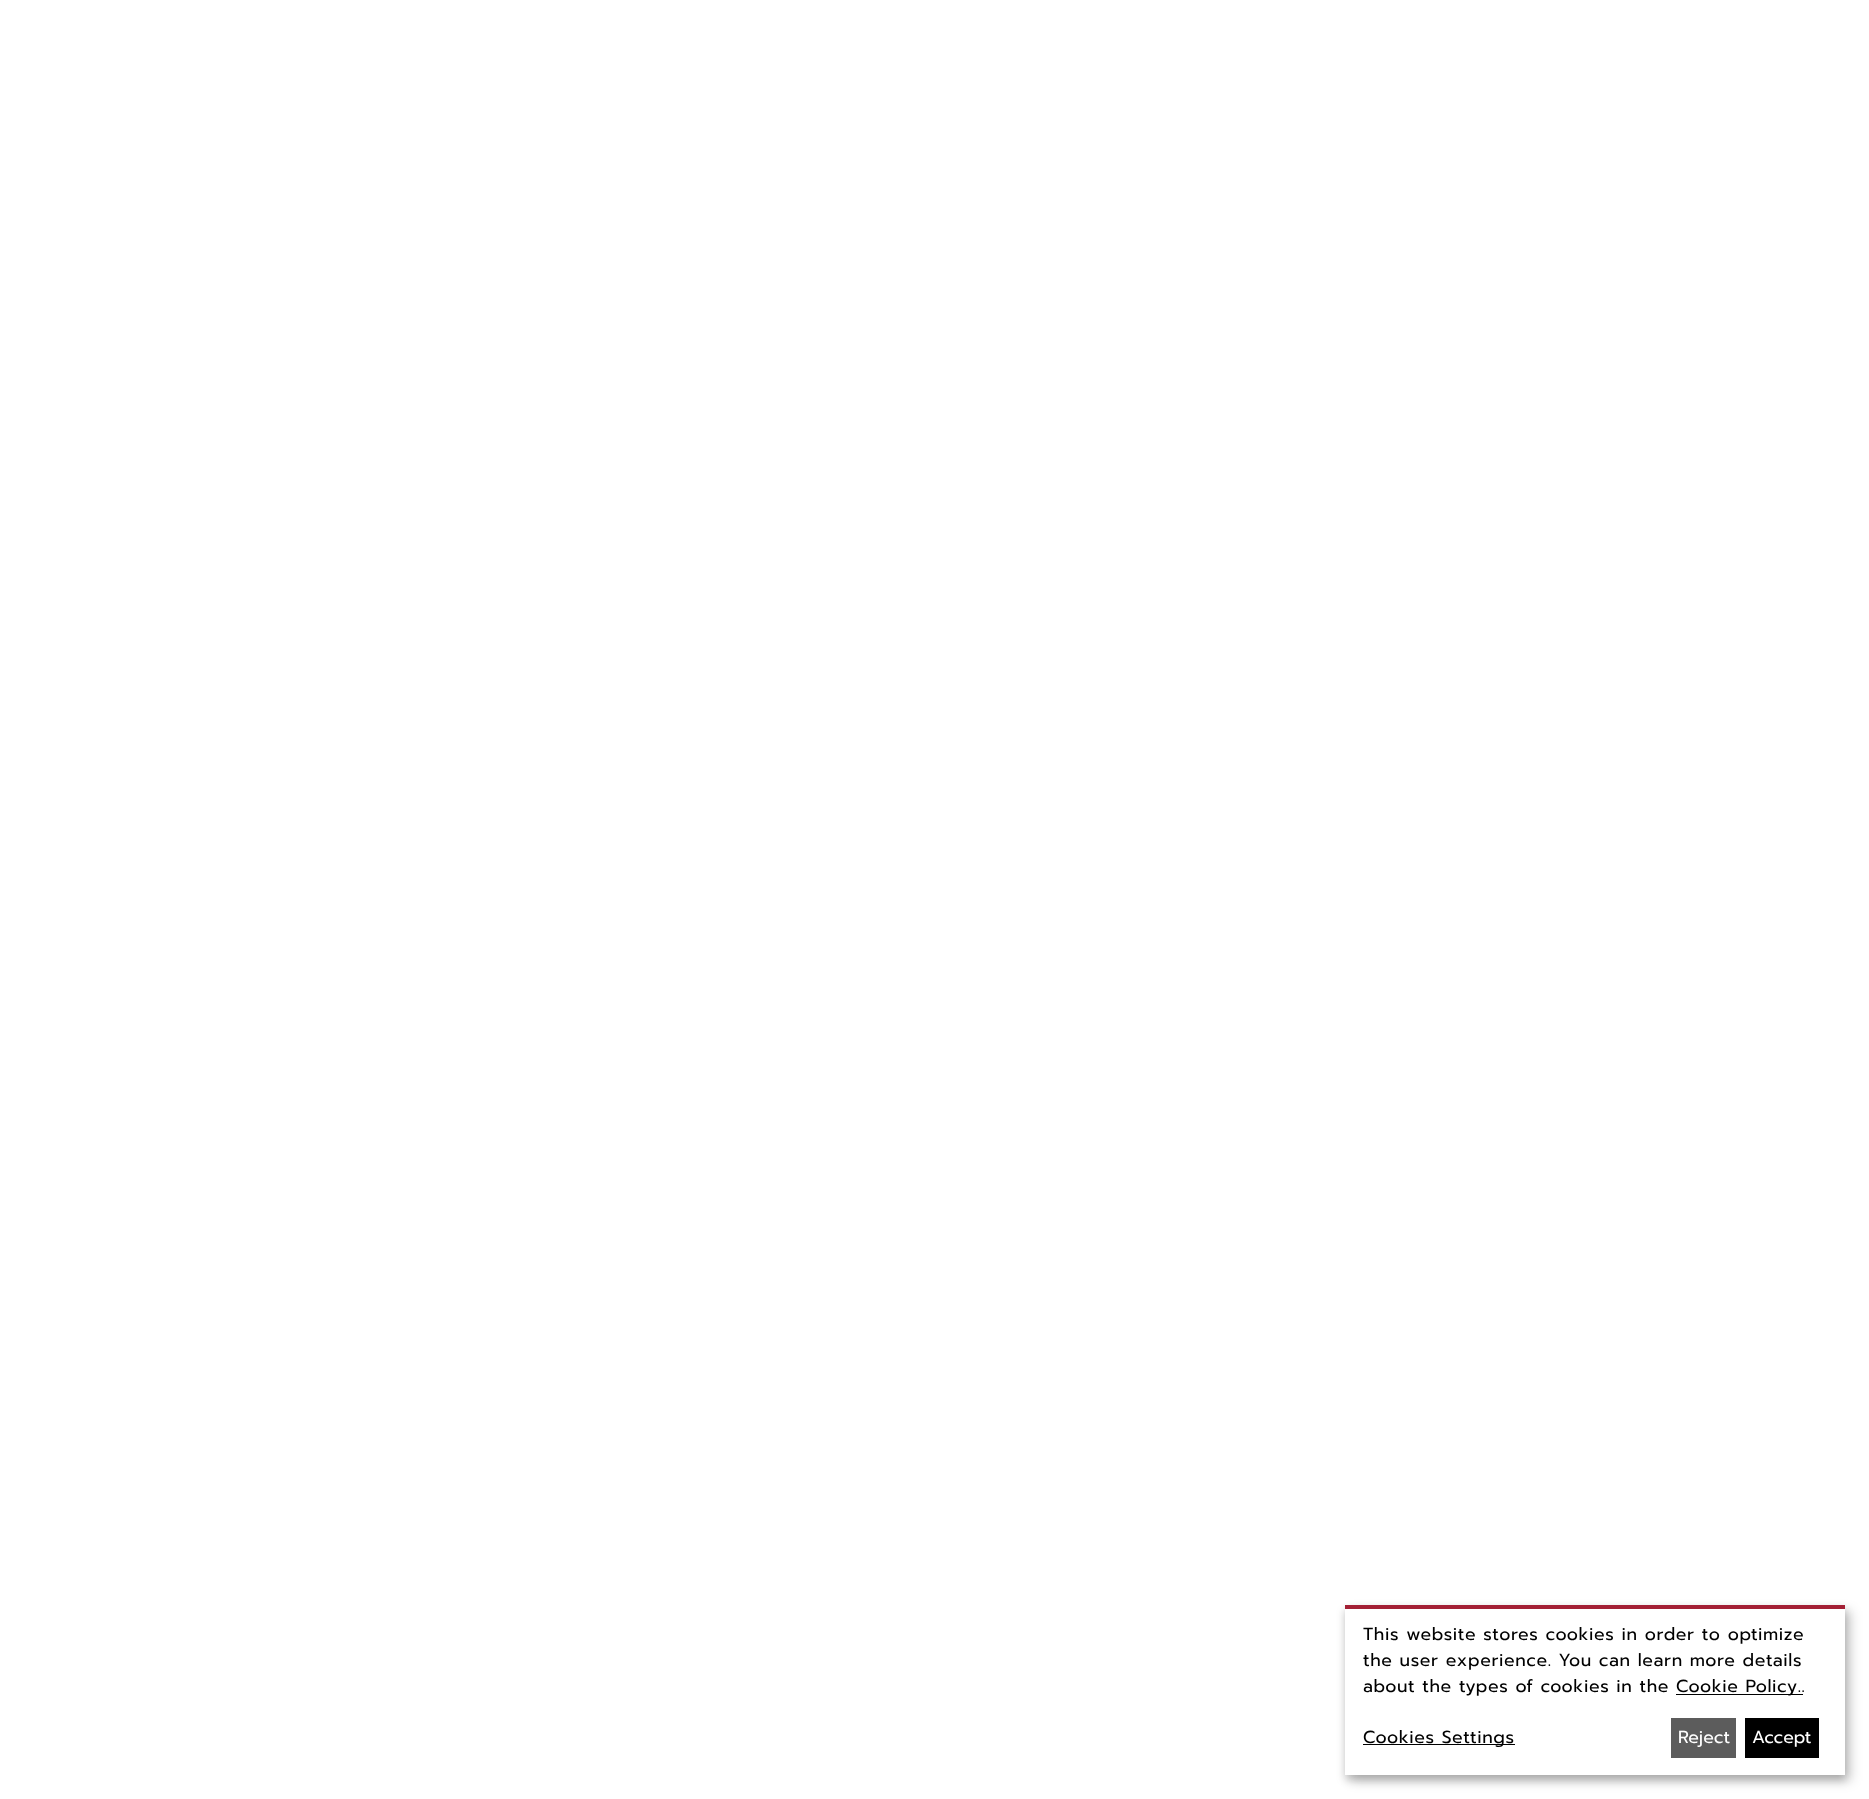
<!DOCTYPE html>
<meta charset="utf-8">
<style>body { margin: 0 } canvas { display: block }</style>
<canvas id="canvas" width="1869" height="1799"></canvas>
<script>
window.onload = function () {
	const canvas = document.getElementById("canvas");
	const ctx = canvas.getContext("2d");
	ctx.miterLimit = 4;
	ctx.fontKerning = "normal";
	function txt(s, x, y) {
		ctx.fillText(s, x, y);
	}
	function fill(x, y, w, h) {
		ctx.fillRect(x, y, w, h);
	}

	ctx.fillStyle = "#FFFFFF";
	fill(0, 0, 1869, 1799);
	ctx.save();
	ctx.beginPath();
	ctx.moveTo(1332, 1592);
	ctx.lineTo(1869, 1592);
	ctx.lineTo(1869, 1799);
	ctx.lineTo(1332, 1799);
	ctx.closePath();
	ctx.moveTo(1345, 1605);
	ctx.lineTo(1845, 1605);
	ctx.lineTo(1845, 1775);
	ctx.lineTo(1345, 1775);
	ctx.closePath();
	ctx.clip("evenodd");
	ctx.fillStyle = "rgba(0, 0, 0, 0.19)";
	ctx.filter = "blur(6px)";
	ctx.beginPath();
	ctx.rect(1351, 1611, 500, 170);
	ctx.fill();
	ctx.filter = "none";
	ctx.restore();
	ctx.save();
	ctx.beginPath();
	ctx.moveTo(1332, 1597);
	ctx.lineTo(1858, 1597);
	ctx.lineTo(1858, 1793);
	ctx.lineTo(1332, 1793);
	ctx.closePath();
	ctx.moveTo(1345, 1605);
	ctx.lineTo(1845, 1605);
	ctx.lineTo(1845, 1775);
	ctx.lineTo(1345, 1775);
	ctx.closePath();
	ctx.clip("evenodd");
	ctx.fillStyle = "rgba(0, 0, 0, 0.2)";
	ctx.filter = "blur(4px)";
	ctx.beginPath();
	ctx.rect(1345, 1610, 500, 170);
	ctx.fill();
	ctx.filter = "none";
	ctx.restore();
	ctx.fillStyle = "#A32035";
	fill(1345, 1605, 500, 4);
	ctx.fillStyle = "#000000";
	fill(1676, 1694, 127, 1);
	fill(1363, 1744, 152, 1);
	ctx.fillStyle = "#5C5C5C";
	fill(1671, 1718, 65, 40);
	ctx.fillStyle = "#000000";
	fill(1745, 1718, 74, 40);
	ctx.letterSpacing = "0.6px";
	ctx.font = "17.5px Prompt";
	txt("This website stores cookies in order to optimize", 1363, 1640);
	txt("the user experience. You can learn more details", 1363, 1666);
	txt("about the types of cookies in the", 1363, 1692);
	txt("Cookie Policy..", 1676, 1692);
	txt("Cookies Settings", 1363, 1743);
	ctx.letterSpacing = "0px";
	ctx.fillStyle = "#FFFFFF";
	txt("Reject", 1678, 1743);
	txt("Accept", 1752, 1743);
};
</script>
